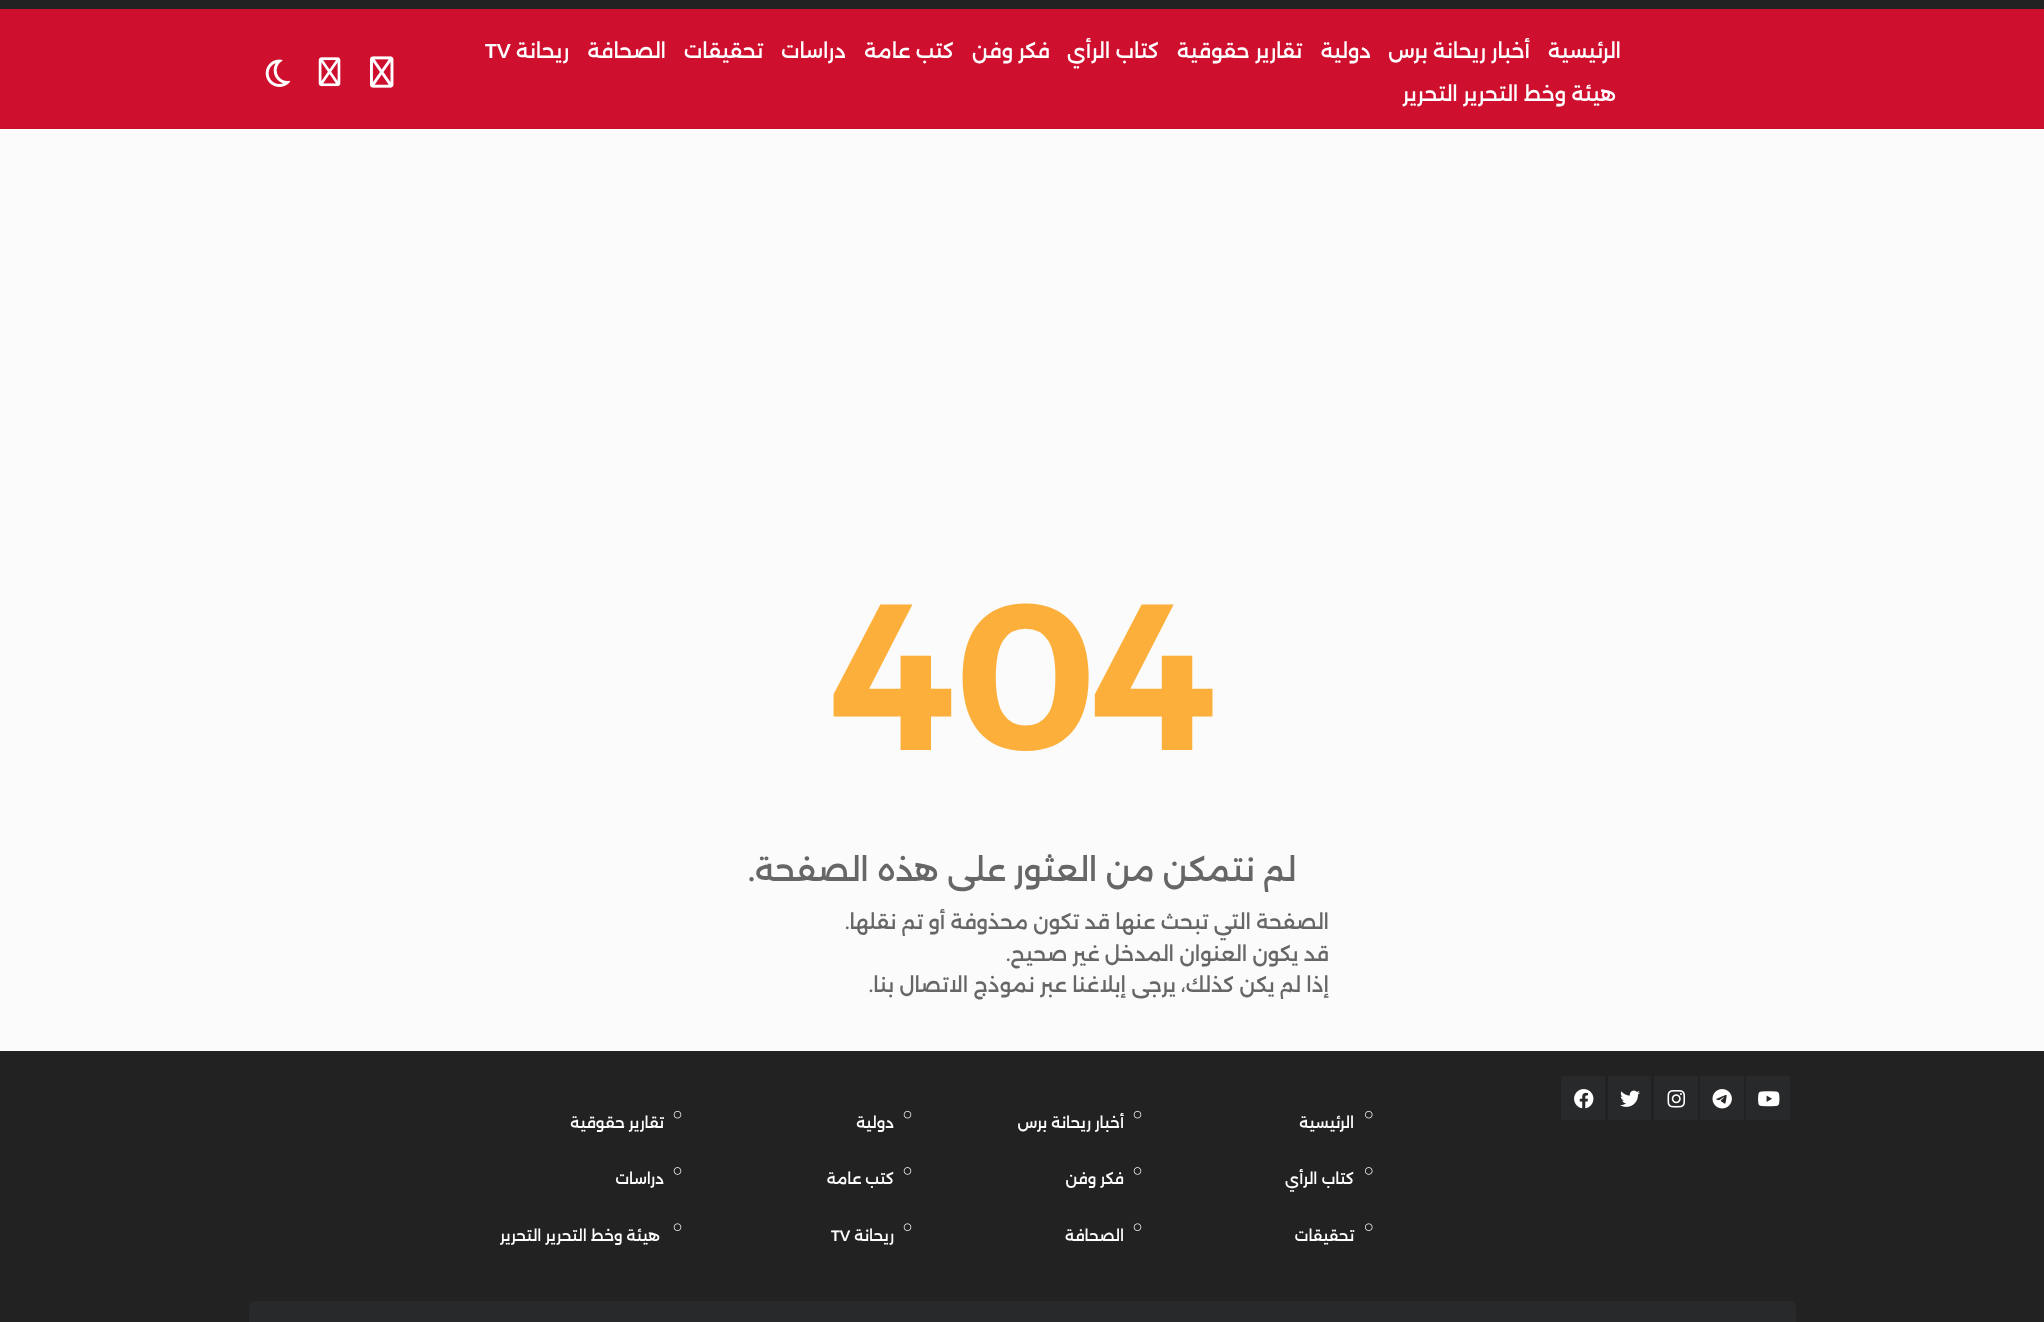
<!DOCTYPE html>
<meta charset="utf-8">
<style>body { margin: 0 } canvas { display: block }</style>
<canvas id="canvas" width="2044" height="1322"></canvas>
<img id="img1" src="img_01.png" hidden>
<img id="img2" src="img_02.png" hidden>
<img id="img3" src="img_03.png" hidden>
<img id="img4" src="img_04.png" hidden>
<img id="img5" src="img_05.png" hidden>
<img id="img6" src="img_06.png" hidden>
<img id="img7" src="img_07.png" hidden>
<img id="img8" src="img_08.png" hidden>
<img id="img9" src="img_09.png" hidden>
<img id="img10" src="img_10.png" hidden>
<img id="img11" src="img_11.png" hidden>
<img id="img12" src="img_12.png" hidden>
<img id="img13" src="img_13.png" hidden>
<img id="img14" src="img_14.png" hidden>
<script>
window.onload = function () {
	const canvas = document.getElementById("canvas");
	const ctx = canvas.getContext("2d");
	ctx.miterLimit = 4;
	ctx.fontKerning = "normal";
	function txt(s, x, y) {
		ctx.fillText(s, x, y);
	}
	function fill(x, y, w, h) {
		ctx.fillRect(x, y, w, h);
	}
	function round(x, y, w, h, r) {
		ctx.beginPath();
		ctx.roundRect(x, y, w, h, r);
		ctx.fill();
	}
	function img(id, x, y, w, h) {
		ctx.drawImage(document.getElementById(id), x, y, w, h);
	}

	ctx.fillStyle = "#FBFBFB";
	fill(0, 0, 2044, 1322);
	ctx.fillStyle = "#222222";
	fill(0, 0, 2044, 9);
	ctx.fillStyle = "#CE0F2E";
	fill(0, 9, 2044, 120);
	img("img1", 370, 56, 24, 32);
	img("img2", 318, 57, 23, 30);
	img("img3", 265, 59, 26, 28);
	ctx.fillStyle = "#222222";
	fill(0, 1051, 2044, 271);
	ctx.fillStyle = "#27292A";
	fill(1746, 1076, 44, 44);
	img("img4", 1758, 1091, 22, 16);
	fill(1700, 1076, 44, 44);
	img("img5", 1712, 1089, 20, 20);
	fill(1654, 1076, 44, 44);
	img("img6", 1667, 1090, 18, 18);
	fill(1608, 1076, 43, 44);
	img("img7", 1620, 1090, 20, 17);
	fill(1561, 1076, 44, 44);
	img("img8", 1574, 1089, 20, 20);
	img("img9", 1365, 1110, 8, 9);
	img("img10", 1133, 1110, 9, 9);
	img("img10", 903, 1110, 9, 9);
	img("img10", 673, 1110, 9, 9);
	img("img11", 1365, 1167, 8, 8);
	img("img12", 1133, 1167, 9, 8);
	img("img12", 903, 1167, 9, 8);
	img("img12", 673, 1167, 9, 8);
	img("img13", 1365, 1223, 8, 8);
	img("img14", 1133, 1223, 9, 8);
	img("img14", 903, 1223, 9, 8);
	img("img14", 673, 1223, 9, 8);
	round(249, 1301, 1547, 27, 6);
	ctx.direction = "rtl";
	ctx.font = "500 20px Alexandria";
	ctx.fillStyle = "#FFFFFF";
	txt("الرئيسية", 1621, 58);
	txt("أخبار ريحانة برس", 1530, 58);
	txt("دولية", 1371, 58);
	txt("تقارير حقوقية", 1302, 58);
	txt("كتاب الرأي", 1159, 58);
	txt("فكر وفن", 1050, 58);
	txt("كتب عامة", 954, 58);
	txt("دراسات", 846, 58);
	txt("تحقيقات", 763, 58);
	txt("الصحافة", 666, 58);
	txt("ريحانة", 569, 58);
	ctx.direction = "ltr";
	txt("TV", 485, 58);
	ctx.direction = "rtl";
	txt("هيئة وخط التحرير التحرير", 1616, 101);
	ctx.direction = "ltr";
	ctx.font = "bold 200px Alexandria";
	ctx.fillStyle = "#FCB03B";
	txt("404", 832, 750);
	ctx.direction = "rtl";
	ctx.font = "500 31.25px Alexandria";
	ctx.fillStyle = "#666666";
	txt("لم نتمكن من العثور على هذه الصفحة.", 1296, 881);
	ctx.font = "500 20px Alexandria";
	txt("الصفحة التي تبحث عنها قد تكون محذوفة أو تم نقلها.", 1329, 929);
	txt("قد يكون العنوان المدخل غير صحيح.", 1329, 961);
	txt("إذا لم يكن كذلك، يرجى إبلاغنا عبر نموذج الاتصال بنا.", 1329, 992);
	ctx.font = "500 15px Alexandria";
	ctx.fillStyle = "#FFFFFF";
	txt("الرئيسية", 1354, 1128);
	txt("أخبار ريحانة برس", 1124, 1128);
	txt("دولية", 894, 1128);
	txt("تقارير حقوقية", 664, 1128);
	txt("كتاب الرأي", 1354, 1184);
	txt("فكر وفن", 1124, 1184);
	txt("كتب عامة", 894, 1184);
	txt("دراسات", 664, 1184);
	txt("تحقيقات", 1354, 1241);
	txt("الصحافة", 1124, 1241);
	txt("ريحانة", 894, 1241);
	ctx.direction = "ltr";
	txt("TV", 831, 1241);
	ctx.direction = "rtl";
	txt("هيئة وخط التحرير التحرير", 660, 1241);
};
</script>
